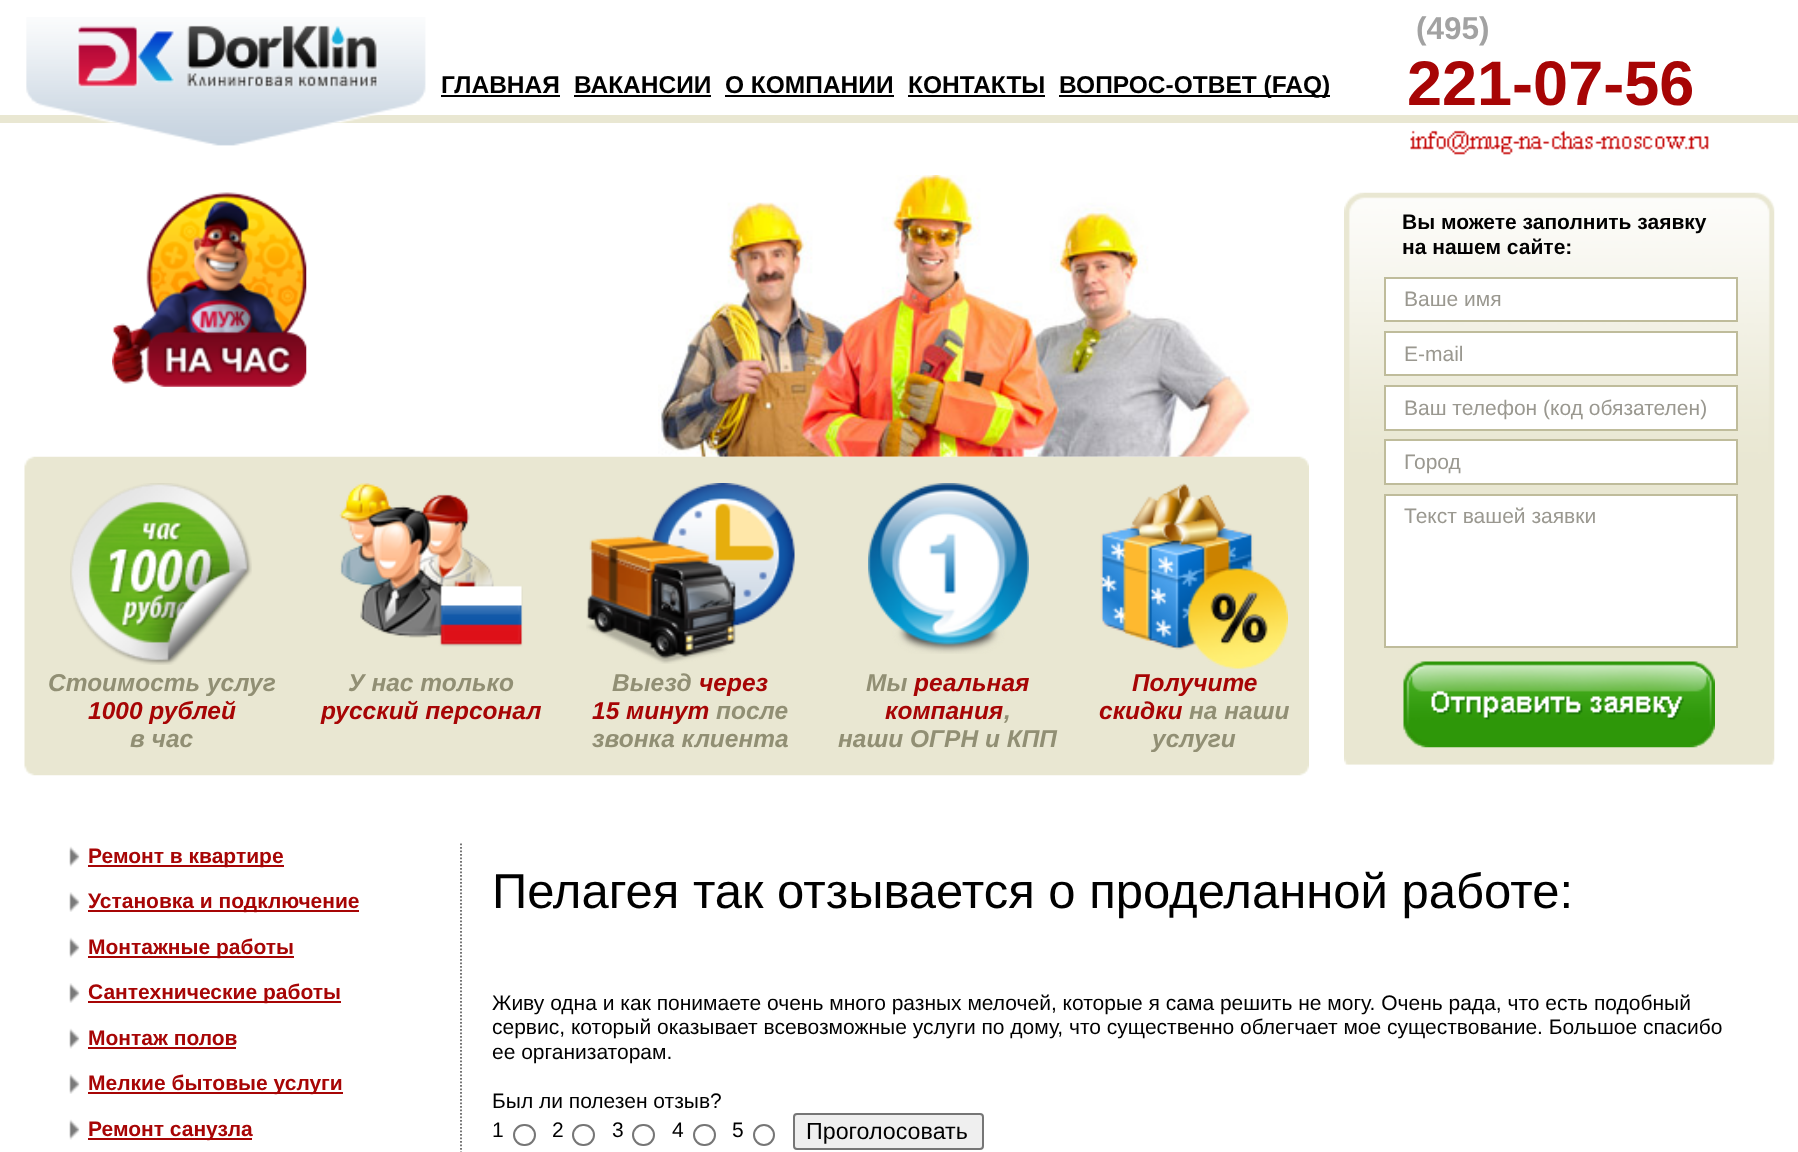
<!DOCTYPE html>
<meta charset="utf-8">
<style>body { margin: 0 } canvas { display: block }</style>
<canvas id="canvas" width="1798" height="1152"></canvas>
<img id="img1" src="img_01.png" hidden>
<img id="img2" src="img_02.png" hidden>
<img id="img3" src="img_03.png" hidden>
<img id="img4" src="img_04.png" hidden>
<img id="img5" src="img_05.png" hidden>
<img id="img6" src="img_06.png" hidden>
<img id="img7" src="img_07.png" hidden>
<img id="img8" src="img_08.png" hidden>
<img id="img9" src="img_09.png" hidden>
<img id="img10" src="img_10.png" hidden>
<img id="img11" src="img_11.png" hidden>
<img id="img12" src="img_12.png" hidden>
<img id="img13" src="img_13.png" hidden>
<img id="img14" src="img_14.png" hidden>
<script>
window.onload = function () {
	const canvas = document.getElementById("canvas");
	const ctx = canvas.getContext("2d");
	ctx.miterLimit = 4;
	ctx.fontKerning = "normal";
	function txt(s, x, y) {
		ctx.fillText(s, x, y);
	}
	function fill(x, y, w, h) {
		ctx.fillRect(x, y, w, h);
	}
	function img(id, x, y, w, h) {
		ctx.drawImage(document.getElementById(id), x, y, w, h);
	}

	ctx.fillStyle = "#FFFFFF";
	fill(0, 0, 1798, 1152);
	ctx.fillStyle = "#E9E7D2";
	fill(0, 115, 1798, 8);
	img("img1", 26, 17, 400, 129);
	ctx.fillStyle = "#000000";
	fill(441, 95, 119, 2);
	fill(574, 95, 137, 2);
	fill(725, 95, 169, 2);
	fill(908, 95, 137, 2);
	fill(1059, 95, 271, 2);
	img("img2", 1410, 130, 299, 25);
	img("img3", 1344, 192, 431, 573);
	ctx.fillStyle = "#FFFFFF";
	ctx.beginPath();
	ctx.rect(1385, 278, 352, 43);
	ctx.fill();
	ctx.strokeStyle = "#BFBC9B";
	ctx.lineWidth = 2;
	ctx.stroke();
	ctx.beginPath();
	ctx.rect(1385, 332, 352, 43);
	ctx.fill();
	ctx.stroke();
	ctx.beginPath();
	ctx.rect(1385, 386, 352, 44);
	ctx.fill();
	ctx.stroke();
	ctx.beginPath();
	ctx.rect(1385, 440, 352, 44);
	ctx.fill();
	ctx.stroke();
	ctx.beginPath();
	ctx.rect(1385, 495, 352, 152);
	ctx.fill();
	ctx.stroke();
	img("img4", 1403, 661, 312, 87);
	img("img5", 112, 192, 195, 195);
	img("img6", 658, 175, 596, 282);
	img("img7", 24, 456, 1285, 320);
	img("img8", 70, 483, 182, 182);
	img("img9", 339, 483, 184, 164);
	img("img10", 586, 483, 209, 181);
	img("img11", 868, 483, 161, 171);
	img("img12", 1100, 483, 188, 186);
	img("img13", 69, 846, 11, 21);
	ctx.fillStyle = "#A70505";
	fill(88, 865, 196, 2);
	img("img14", 69, 892, 11, 20);
	fill(88, 910, 271, 2);
	img("img13", 69, 937, 11, 21);
	fill(88, 956, 206, 2);
	img("img14", 69, 983, 11, 20);
	fill(88, 1001, 253, 2);
	img("img13", 69, 1028, 11, 21);
	fill(88, 1047, 148, 2);
	img("img14", 69, 1074, 11, 20);
	fill(88, 1092, 255, 2);
	img("img13", 69, 1119, 11, 21);
	fill(88, 1138, 164, 2);
	ctx.beginPath();
	ctx.moveTo(461, 843.5);
	ctx.lineTo(461, 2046);
	ctx.strokeStyle = "#666666";
	ctx.lineWidth = 1.8;
	ctx.setLineDash([1.75, 1.75]);
	ctx.stroke();
	ctx.beginPath();
	ctx.roundRect(514, 1125, 21, 20, 10);
	ctx.strokeStyle = "#767676";
	ctx.lineWidth = 2;
	ctx.setLineDash([]);
	ctx.stroke();
	ctx.beginPath();
	ctx.roundRect(573, 1125, 21, 20, 10);
	ctx.stroke();
	ctx.beginPath();
	ctx.roundRect(633, 1125, 21, 20, 10);
	ctx.stroke();
	ctx.beginPath();
	ctx.roundRect(694, 1125, 21, 20, 10);
	ctx.stroke();
	ctx.beginPath();
	ctx.arc(764, 1135, 10, 0, Math.PI * 2);
	ctx.stroke();
	ctx.fillStyle = "#EFEFEF";
	ctx.beginPath();
	ctx.roundRect(794, 1114, 189, 35, 3);
	ctx.fill();
	ctx.stroke();
	ctx.font = "bold 24.5px Liberation Sans";
	ctx.fillStyle = "#000000";
	txt("ГЛАВНАЯ", 441, 93);
	txt("ВАКАНСИИ", 574, 93);
	txt("О КОМПАНИИ", 725, 93);
	txt("КОНТАКТЫ", 908, 93);
	txt("ВОПРОС-ОТВЕТ (FAQ)", 1059, 93);
	ctx.font = "bold 31.5px Liberation Sans";
	ctx.fillStyle = "#A2A2A2";
	txt("(495)", 1416, 39);
	ctx.font = "bold 63px Liberation Sans";
	ctx.fillStyle = "#A70505";
	txt("221-07-56", 1407, 105);
	ctx.font = "bold 21px Liberation Sans";
	ctx.fillStyle = "#000000";
	txt("Вы можете заполнить заявку", 1402, 229);
	txt("на нашем сайте:", 1402, 254);
	ctx.font = "21px Liberation Sans";
	ctx.fillStyle = "#9A9890";
	txt("Ваше имя", 1404, 306);
	txt("E-mail", 1404, 361);
	txt("Ваш телефон (код обязателен)", 1404, 415);
	txt("Город", 1404, 469);
	txt("Текст вашей заявки", 1404, 523);
	ctx.font = "italic bold 24.5px Liberation Sans";
	ctx.fillStyle = "#918F74";
	txt("Стоимость услуг", 48, 691);
	ctx.fillStyle = "#A70505";
	txt("1000 рублей", 88, 719);
	ctx.fillStyle = "#918F74";
	txt("в час", 130, 747);
	txt("У нас только", 348, 691);
	ctx.fillStyle = "#A70505";
	txt("русский персонал", 321, 719);
	ctx.fillStyle = "#918F74";
	txt("Выезд", 612, 691);
	ctx.fillStyle = "#A70505";
	txt("через", 699, 691);
	txt("15 минут", 592, 719);
	ctx.fillStyle = "#918F74";
	txt("после", 716, 719);
	txt("звонка клиента", 592, 747);
	txt("Мы", 866, 691);
	ctx.fillStyle = "#A70505";
	txt("реальная", 914, 691);
	txt("компания", 885, 719);
	ctx.fillStyle = "#918F74";
	txt(",", 1004, 719);
	txt("наши ОГРН и КПП", 838, 747);
	ctx.fillStyle = "#A70505";
	txt("Получите", 1132, 691);
	txt("скидки", 1099, 719);
	ctx.fillStyle = "#918F74";
	txt("на наши", 1189, 719);
	txt("услуги", 1152, 747);
	ctx.font = "bold 21px Liberation Sans";
	ctx.fillStyle = "#A70505";
	txt("Ремонт в квартире", 88, 863);
	txt("Установка и подключение", 88, 908);
	txt("Монтажные работы", 88, 954);
	txt("Сантехнические работы", 88, 999);
	txt("Монтаж полов", 88, 1045);
	txt("Мелкие бытовые услуги", 88, 1090);
	txt("Ремонт санузла", 88, 1136);
	ctx.font = "49px Liberation Sans";
	ctx.fillStyle = "#000000";
	txt("Пелагея так отзывается о проделанной работе:", 492, 908);
	ctx.font = "21px Liberation Sans";
	txt("Живу одна и как понимаете очень много разных мелочей, которые я сама решить не могу. Очень рада, что есть подобный", 492, 1010);
	txt("сервис, который оказывает всевозможные услуги по дому, что существенно облегчает мое существование. Большое спасибо", 492, 1034);
	txt("ее организаторам.", 492, 1059);
	txt("Был ли полезен отзыв?", 492, 1108);
	txt("1", 492, 1137);
	txt("2", 552, 1137);
	txt("3", 612, 1137);
	txt("4", 672, 1137);
	txt("5", 732, 1137);
	ctx.font = "23.25px Liberation Sans";
	txt("Проголосовать", 806, 1139);
};
</script>
